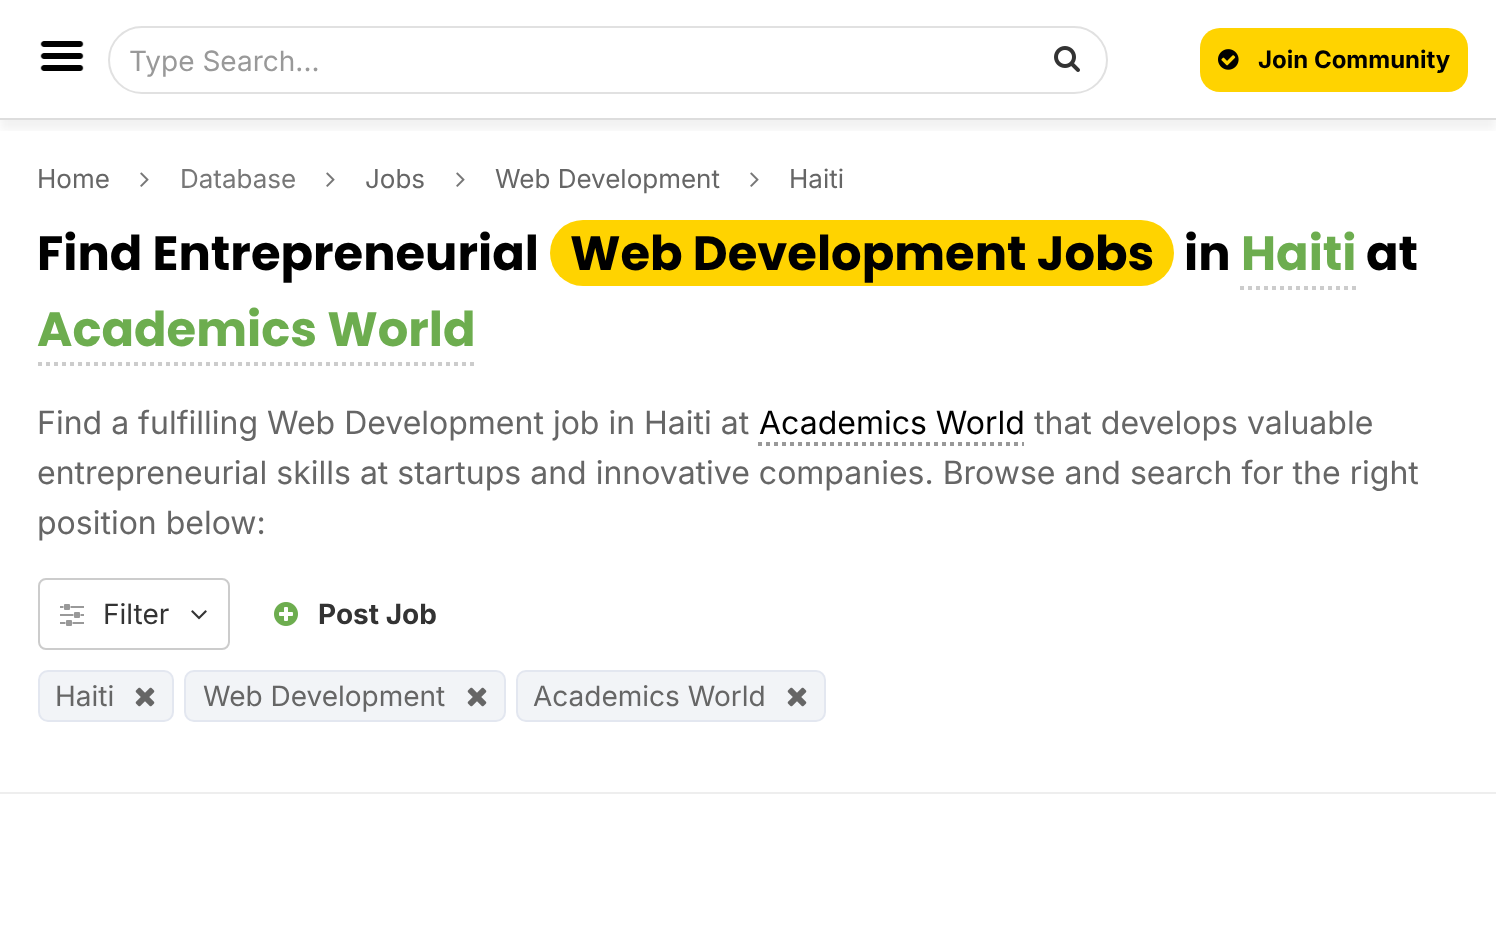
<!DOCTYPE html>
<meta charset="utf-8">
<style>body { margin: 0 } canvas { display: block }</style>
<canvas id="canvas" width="1496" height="932"></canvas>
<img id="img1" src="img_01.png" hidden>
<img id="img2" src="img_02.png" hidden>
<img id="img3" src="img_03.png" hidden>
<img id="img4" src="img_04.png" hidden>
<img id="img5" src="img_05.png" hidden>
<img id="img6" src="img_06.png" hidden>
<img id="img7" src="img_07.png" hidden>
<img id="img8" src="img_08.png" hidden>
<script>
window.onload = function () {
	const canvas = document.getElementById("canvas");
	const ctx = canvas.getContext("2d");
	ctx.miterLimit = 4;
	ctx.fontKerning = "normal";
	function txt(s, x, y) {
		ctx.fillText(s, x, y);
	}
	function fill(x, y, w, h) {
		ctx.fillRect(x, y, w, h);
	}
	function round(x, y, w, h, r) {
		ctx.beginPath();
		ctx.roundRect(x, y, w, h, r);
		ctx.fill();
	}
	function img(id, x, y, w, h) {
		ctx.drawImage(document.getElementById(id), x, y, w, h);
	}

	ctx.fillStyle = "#FFFFFF";
	fill(0, 0, 1496, 932);
	ctx.save();
	ctx.beginPath();
	ctx.rect(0, 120, 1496, 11);
	ctx.clip();
	ctx.fillStyle = "rgba(0, 0, 0, 0.05)";
	ctx.filter = "blur(5px)";
	ctx.beginPath();
	ctx.rect(0, 10, 1496, 120);
	ctx.fill();
	ctx.filter = "none";
	ctx.restore();
	ctx.fillStyle = "#DDDDDD";
	fill(0, 118, 1496, 2);
	img("img1", 40, 41, 44, 30);
	ctx.beginPath();
	ctx.roundRect(109, 27, 998, 66, 33);
	ctx.strokeStyle = "#E1E1E1";
	ctx.lineWidth = 2;
	ctx.stroke();
	img("img2", 1054, 46, 26, 26);
	ctx.fillStyle = "#FFD300";
	round(1200, 28, 268, 64, 20);
	img("img3", 1218, 49, 21, 21);
	img("img4", 140, 172, 9, 15);
	img("img4", 326, 172, 9, 15);
	img("img4", 456, 172, 9, 15);
	img("img4", 750, 172, 9, 15);
	round(550, 220, 624, 66, 33);
	ctx.beginPath();
	ctx.moveTo(1240, 288);
	ctx.lineTo(1356, 288);
	ctx.strokeStyle = "#CCCCCC";
	ctx.lineWidth = 4;
	ctx.setLineDash([4, 4]);
	ctx.stroke();
	ctx.beginPath();
	ctx.moveTo(38, 364);
	ctx.lineTo(476, 364);
	ctx.stroke();
	ctx.beginPath();
	ctx.moveTo(758, 444);
	ctx.lineTo(1024, 444);
	ctx.strokeStyle = "#999999";
	ctx.stroke();
	ctx.beginPath();
	ctx.roundRect(39, 579, 190, 70, 7);
	ctx.strokeStyle = "#CCCCCC";
	ctx.lineWidth = 2;
	ctx.setLineDash([]);
	ctx.stroke();
	img("img5", 60, 604, 24, 22);
	img("img6", 191, 610, 16, 10);
	img("img7", 274, 602, 24, 24);
	ctx.fillStyle = "#F2F4F7";
	ctx.beginPath();
	ctx.roundRect(39, 671, 134, 50, 9);
	ctx.fill();
	ctx.strokeStyle = "#E3E7F0";
	ctx.stroke();
	img("img8", 135, 687, 20, 20);
	ctx.beginPath();
	ctx.roundRect(185, 671, 320, 50, 9);
	ctx.fill();
	ctx.stroke();
	img("img8", 467, 687, 20, 20);
	ctx.beginPath();
	ctx.roundRect(517, 671, 308, 50, 9);
	ctx.fill();
	ctx.stroke();
	img("img8", 787, 687, 20, 20);
	ctx.fillStyle = "#EEEEEE";
	fill(0, 792, 1496, 2);
	ctx.font = "28px Inter";
	ctx.fillStyle = "#999999";
	txt("Type Search...", 129, 71);
	ctx.font = "bold 24px Inter";
	ctx.fillStyle = "#000000";
	txt("Join Community", 1258, 68);
	ctx.font = "26px Inter";
	ctx.fillStyle = "#666666";
	txt("Home", 37, 188);
	ctx.fillStyle = "#777777";
	txt("Database", 180, 188);
	ctx.fillStyle = "#666666";
	txt("Jobs", 365, 188);
	txt("Web Development", 495, 188);
	txt("Haiti", 789, 188);
	ctx.font = "bold 48px Poppins";
	ctx.fillStyle = "#000000";
	txt("Find Entrepreneurial", 37, 270);
	txt("Web Development Jobs", 570, 270);
	txt("in", 1184, 270);
	ctx.fillStyle = "#6DAD4F";
	txt("Haiti", 1241, 270);
	ctx.fillStyle = "#000000";
	txt("at", 1366, 270);
	ctx.fillStyle = "#6DAD4F";
	txt("Academics World", 37, 346);
	ctx.font = "32px Inter";
	ctx.fillStyle = "#666666";
	txt("Find a fulfilling Web Development job in Haiti at", 37, 434);
	ctx.fillStyle = "#000000";
	txt("Academics World", 759, 434);
	ctx.fillStyle = "#666666";
	txt("that develops valuable", 1034, 434);
	txt("entrepreneurial skills at startups and innovative companies. Browse and search for the right", 37, 484);
	txt("position below:", 37, 534);
	ctx.font = "28px Inter";
	ctx.fillStyle = "#333333";
	txt("Filter", 103, 624);
	ctx.font = "bold 28px Inter";
	txt("Post Job", 318, 624);
	ctx.font = "28px Inter";
	ctx.fillStyle = "#666666";
	txt("Haiti", 55, 706);
	txt("Web Development", 203, 706);
	txt("Academics World", 533, 706);
};
</script>
